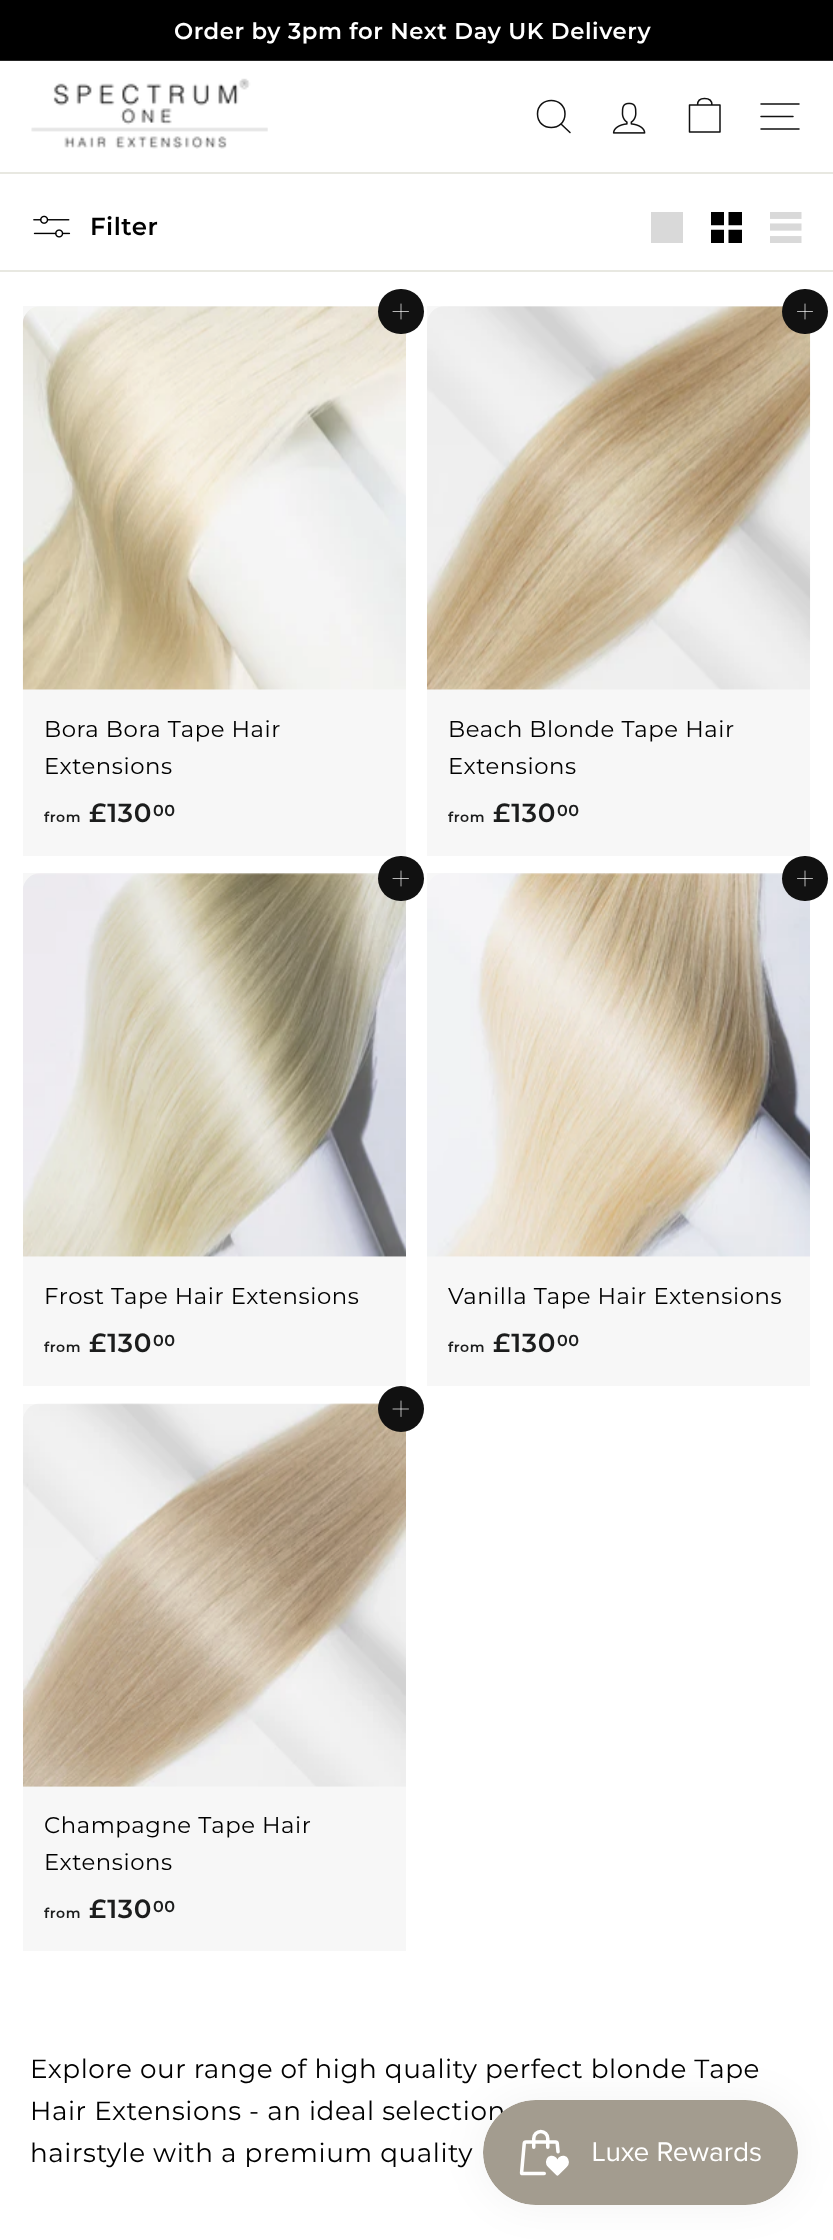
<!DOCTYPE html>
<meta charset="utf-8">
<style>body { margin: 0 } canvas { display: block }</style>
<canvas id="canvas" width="833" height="2240"></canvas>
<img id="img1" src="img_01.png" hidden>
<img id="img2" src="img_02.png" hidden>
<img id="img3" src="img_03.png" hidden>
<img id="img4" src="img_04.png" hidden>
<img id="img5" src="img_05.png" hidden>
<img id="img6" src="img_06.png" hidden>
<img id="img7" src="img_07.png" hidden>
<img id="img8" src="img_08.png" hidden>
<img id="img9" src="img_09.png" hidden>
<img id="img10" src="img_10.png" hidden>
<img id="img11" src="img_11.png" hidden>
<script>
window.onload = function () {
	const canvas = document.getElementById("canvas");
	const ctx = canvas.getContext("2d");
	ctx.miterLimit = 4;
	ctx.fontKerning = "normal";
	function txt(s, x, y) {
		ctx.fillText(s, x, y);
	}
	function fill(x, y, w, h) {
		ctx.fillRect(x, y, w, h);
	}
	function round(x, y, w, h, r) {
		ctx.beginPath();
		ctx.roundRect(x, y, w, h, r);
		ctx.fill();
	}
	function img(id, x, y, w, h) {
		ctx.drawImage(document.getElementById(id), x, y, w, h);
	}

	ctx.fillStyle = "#FFFFFF";
	fill(0, 0, 833, 2240);
	ctx.fillStyle = "#000000";
	fill(0, 0, 833, 60);
	ctx.fillStyle = "#262626";
	fill(0, 60, 833, 1);
	img("img1", 31, 78, 237, 71);
	ctx.beginPath();
	ctx.moveTo(565, 114);
	ctx.bezierCurveTo(565, 132, 537.5, 132, 537.5, 114);
	ctx.bezierCurveTo(537.5, 96, 565, 96, 565, 114);
	ctx.closePath();
	ctx.moveTo(570, 132.5);
	ctx.lineTo(561, 124);
	ctx.strokeStyle = "#111111";
	ctx.lineWidth = 1.5;
	ctx.lineCap = "round";
	ctx.lineJoin = "round";
	ctx.stroke();
	img("img2", 612, 102, 34, 32);
	ctx.beginPath();
	ctx.moveTo(697.5, 105);
	ctx.bezierCurveTo(697.5, 100, 700.5, 98.5, 704.5, 98.5);
	ctx.bezierCurveTo(708.5, 98.5, 712, 100, 712, 105);
	ctx.moveTo(689.5, 105);
	ctx.lineTo(720, 105);
	ctx.lineTo(720, 132);
	ctx.lineTo(689.5, 132);
	ctx.closePath();
	ctx.stroke();
	ctx.beginPath();
	ctx.moveTo(761, 104);
	ctx.lineTo(799, 104);
	ctx.moveTo(761, 116.5);
	ctx.lineTo(793, 116.5);
	ctx.moveTo(761, 129);
	ctx.lineTo(799, 129);
	ctx.stroke();
	ctx.fillStyle = "#E8E8E1";
	fill(0, 172, 833, 2);
	fill(0, 270, 833, 2);
	img("img3", 33, 215, 38, 23);
	ctx.fillStyle = "#D9D9D9";
	fill(651, 212, 32, 31);
	img("img4", 711, 212, 31, 31);
	img("img5", 770, 212, 32, 31);
	img("img6", 22, 306, 384, 384);
	ctx.fillStyle = "rgba(0, 0, 0, 0.03)";
	fill(23, 306, 383, 550);
	ctx.fillStyle = "#111111";
	round(378, 289, 46, 45, 22.5);
	ctx.beginPath();
	ctx.moveTo(401, 304);
	ctx.lineTo(401, 319);
	ctx.moveTo(408.5, 311.5);
	ctx.lineTo(393, 311.5);
	ctx.strokeStyle = "#FFFFFF";
	ctx.lineWidth = 0.7;
	ctx.stroke();
	img("img7", 427, 306, 384, 384);
	ctx.fillStyle = "rgba(0, 0, 0, 0.03)";
	fill(427, 306, 383, 550);
	ctx.fillStyle = "#111111";
	round(782, 289, 46, 45, 22.5);
	ctx.beginPath();
	ctx.moveTo(805, 304);
	ctx.lineTo(805, 319);
	ctx.moveTo(812.5, 311.5);
	ctx.lineTo(797.5, 311.5);
	ctx.stroke();
	img("img8", 23, 873, 383, 384);
	ctx.fillStyle = "rgba(0, 0, 0, 0.03)";
	fill(23, 873, 383, 513);
	ctx.fillStyle = "#111111";
	round(378, 856, 46, 45, 22.5);
	ctx.beginPath();
	ctx.moveTo(401, 871);
	ctx.lineTo(401, 886);
	ctx.moveTo(408.5, 878.5);
	ctx.lineTo(393, 878.5);
	ctx.stroke();
	img("img9", 427, 873, 383, 384);
	ctx.fillStyle = "rgba(0, 0, 0, 0.03)";
	fill(427, 873, 383, 513);
	ctx.fillStyle = "#111111";
	round(782, 856, 46, 45, 22.5);
	ctx.beginPath();
	ctx.moveTo(805, 871);
	ctx.lineTo(805, 886);
	ctx.moveTo(812.5, 878.5);
	ctx.lineTo(797.5, 878.5);
	ctx.stroke();
	img("img10", 23, 1403, 383, 384);
	ctx.fillStyle = "rgba(0, 0, 0, 0.03)";
	fill(23, 1404, 383, 547);
	ctx.fillStyle = "#111111";
	ctx.beginPath();
	ctx.arc(401, 1409, 23, 0, Math.PI * 2);
	ctx.fill();
	ctx.beginPath();
	ctx.moveTo(401, 1401);
	ctx.lineTo(401, 1416.5);
	ctx.moveTo(408.5, 1409);
	ctx.lineTo(393, 1409);
	ctx.stroke();
	ctx.fillStyle = "rgba(0, 0, 0, 0.05)";
	ctx.filter = "blur(22px)";
	ctx.beginPath();
	ctx.roundRect(483, 2100, 315, 105, 52.5);
	ctx.fill();
	ctx.filter = "none";
	ctx.letterSpacing = "0.57px";
	ctx.font = "600 22.75px Montserrat";
	ctx.fillStyle = "#FFFFFF";
	txt("Order by 3pm for Next Day UK Delivery", 174, 39);
	ctx.letterSpacing = "0.5px";
	ctx.font = "600 24.5px Montserrat";
	ctx.fillStyle = "#000000";
	txt("Filter", 90, 235);
	ctx.letterSpacing = "0.57px";
	ctx.font = "100 22.75px Montserrat";
	txt("Bora Bora Tape Hair", 44, 737);
	txt("Extensions", 44, 774);
	ctx.font = "600 14px Montserrat";
	ctx.fillStyle = "#1C1D1D";
	txt("from", 44, 822);
	ctx.font = "600 26.25px Montserrat";
	txt("£130", 89, 822);
	ctx.font = "600 16px Montserrat";
	txt("00", 153, 816);
	ctx.font = "100 22.75px Montserrat";
	ctx.fillStyle = "#000000";
	txt("Beach Blonde Tape Hair", 448, 737);
	txt("Extensions", 448, 774);
	ctx.font = "600 14px Montserrat";
	ctx.fillStyle = "#1C1D1D";
	txt("from", 448, 822);
	ctx.font = "600 26.25px Montserrat";
	txt("£130", 493, 822);
	ctx.font = "600 16px Montserrat";
	txt("00", 557, 816);
	ctx.font = "100 22.75px Montserrat";
	ctx.fillStyle = "#000000";
	txt("Frost Tape Hair Extensions", 44, 1304);
	ctx.font = "600 14px Montserrat";
	ctx.fillStyle = "#1C1D1D";
	txt("from", 44, 1352);
	ctx.font = "600 26.25px Montserrat";
	txt("£130", 89, 1352);
	ctx.font = "600 16px Montserrat";
	txt("00", 153, 1346);
	ctx.font = "100 22.75px Montserrat";
	ctx.fillStyle = "#000000";
	txt("Vanilla Tape Hair Extensions", 448, 1304);
	ctx.font = "600 14px Montserrat";
	ctx.fillStyle = "#1C1D1D";
	txt("from", 448, 1352);
	ctx.font = "600 26.25px Montserrat";
	txt("£130", 493, 1352);
	ctx.font = "600 16px Montserrat";
	txt("00", 557, 1346);
	ctx.font = "100 22.75px Montserrat";
	ctx.fillStyle = "#000000";
	txt("Champagne Tape Hair", 44, 1833);
	txt("Extensions", 44, 1870);
	ctx.font = "600 14px Montserrat";
	ctx.fillStyle = "#1C1D1D";
	txt("from", 44, 1918);
	ctx.font = "600 26.25px Montserrat";
	txt("£130", 89, 1918);
	ctx.font = "600 16px Montserrat";
	txt("00", 153, 1912);
	ctx.font = "100 26.25px Montserrat";
	ctx.fillStyle = "#000000";
	txt("Explore our range of high quality perfect blonde Tape", 30, 2078);
	txt("Hair Extensions - an ideal selection", 30, 2120);
	txt("hairstyle with a premium quality", 30, 2162);
	img("img11", 483, 2100, 315, 105);
};
</script>
